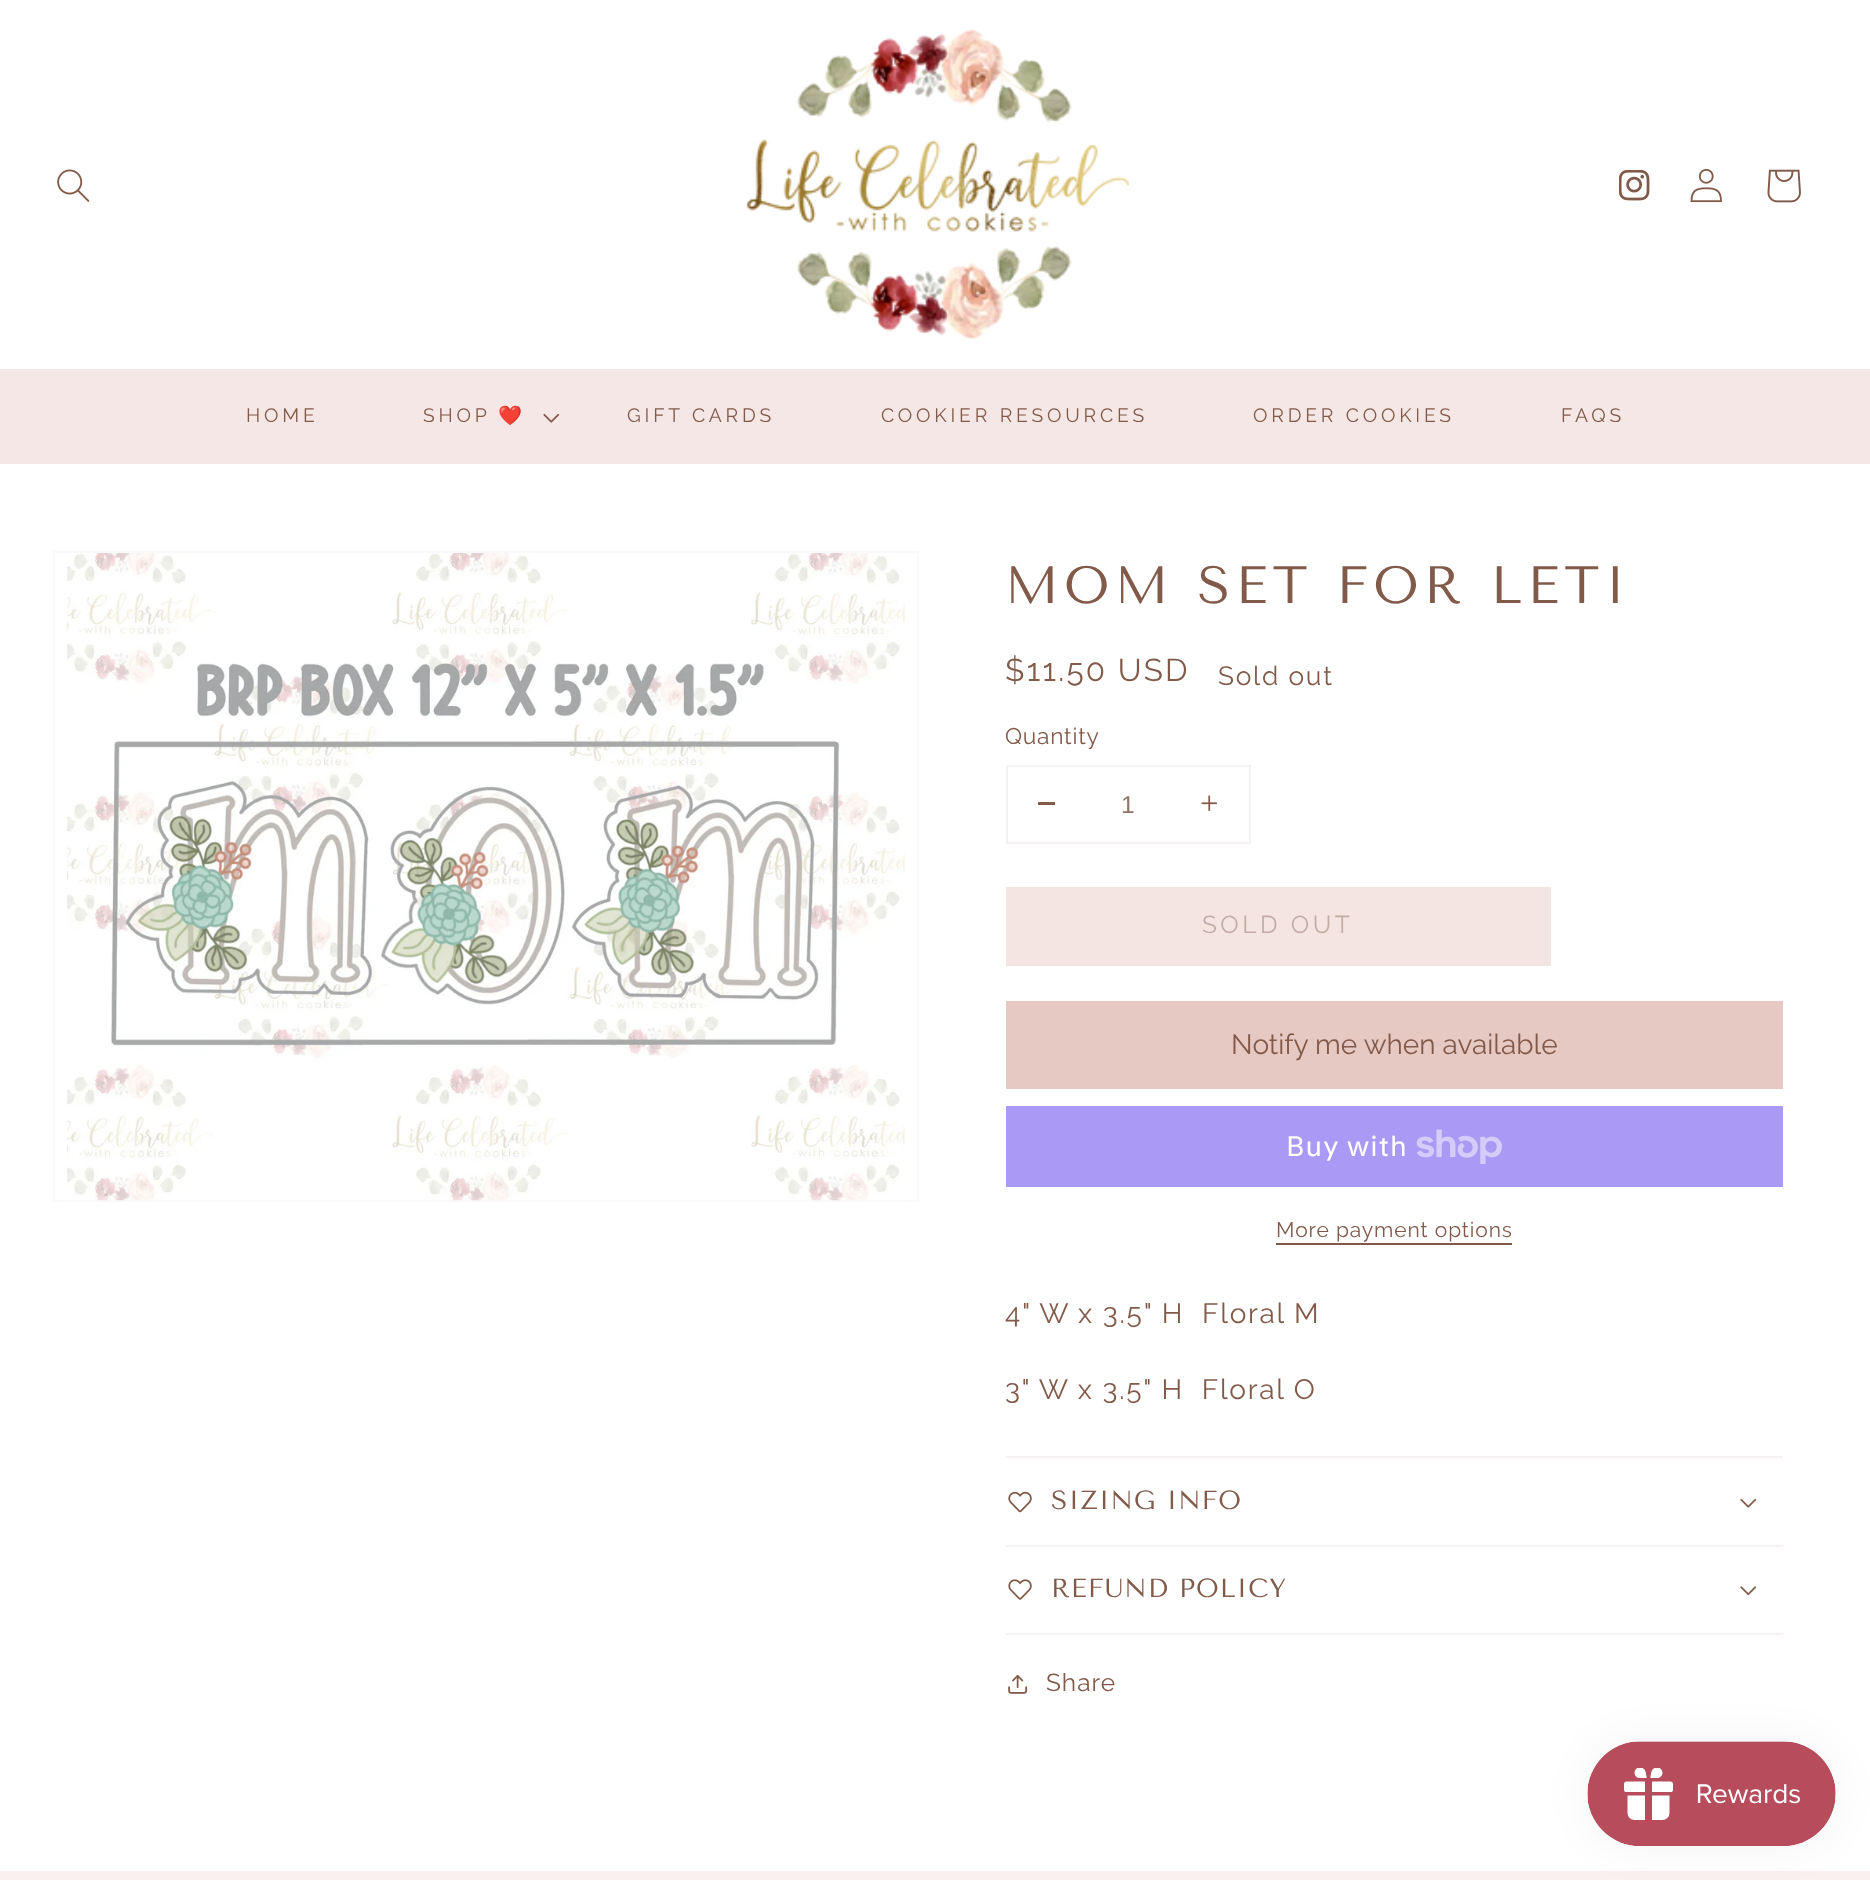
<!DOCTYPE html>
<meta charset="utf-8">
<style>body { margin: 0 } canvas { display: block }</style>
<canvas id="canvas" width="1870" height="1880"></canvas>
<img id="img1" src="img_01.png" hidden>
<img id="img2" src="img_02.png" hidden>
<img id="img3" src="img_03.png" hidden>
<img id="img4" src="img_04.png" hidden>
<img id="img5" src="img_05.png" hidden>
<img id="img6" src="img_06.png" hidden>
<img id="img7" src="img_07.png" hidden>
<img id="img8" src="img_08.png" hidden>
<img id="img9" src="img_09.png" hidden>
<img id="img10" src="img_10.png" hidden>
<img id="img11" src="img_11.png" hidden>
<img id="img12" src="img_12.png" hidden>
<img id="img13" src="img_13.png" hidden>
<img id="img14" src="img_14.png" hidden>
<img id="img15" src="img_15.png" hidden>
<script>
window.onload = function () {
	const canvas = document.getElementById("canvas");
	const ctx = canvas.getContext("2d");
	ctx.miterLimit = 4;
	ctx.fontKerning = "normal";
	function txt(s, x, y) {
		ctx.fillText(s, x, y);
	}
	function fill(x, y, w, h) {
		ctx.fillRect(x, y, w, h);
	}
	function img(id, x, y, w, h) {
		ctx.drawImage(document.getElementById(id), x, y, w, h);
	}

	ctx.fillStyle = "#FFFFFF";
	fill(0, 0, 1870, 1880);
	img("img1", 57, 169, 33, 33);
	img("img2", 746, 29, 383, 311);
	img("img3", 1619, 170, 31, 31);
	img("img4", 1690, 168, 32, 35);
	img("img5", 1767, 169, 34, 34);
	ctx.fillStyle = "#F4E7E5";
	fill(0, 369, 1870, 95);
	img("img6", 543, 413, 17, 10);
	ctx.strokeStyle = "#FAF8F8";
	ctx.lineWidth = 2;
	ctx.strokeRect(54, 552, 864, 649);
	img("img7", 67, 553, 838, 648);
	ctx.strokeStyle = "#F5F2F1";
	ctx.strokeRect(1007, 766, 243, 77);
	ctx.fillStyle = "#825A4A";
	fill(1038, 802, 17, 3);
	img("img8", 1201, 795, 17, 17);
	ctx.fillStyle = "#F4E5E2";
	fill(1006, 887, 545, 79);
	ctx.fillStyle = "#E7C9C4";
	fill(1006, 1001, 777, 88);
	ctx.fillStyle = "#AA99F5";
	fill(1006, 1106, 777, 81);
	img("img9", 1416, 1129, 86, 35);
	ctx.fillStyle = "#825A4A";
	fill(1276, 1243, 236, 2);
	ctx.fillStyle = "#F5F2F1";
	fill(1006, 1456, 777, 2);
	fill(1006, 1545, 777, 2);
	img("img10", 1008, 1491, 24, 22);
	img("img11", 1740, 1498, 17, 10);
	fill(1006, 1633, 777, 2);
	img("img12", 1008, 1579, 24, 21);
	img("img13", 1740, 1586, 17, 10);
	img("img14", 1008, 1675, 20, 19);
	ctx.fillStyle = "#F8F1F0";
	fill(0, 1871, 1870, 9);
	ctx.fillStyle = "rgba(0, 0, 0, 0.05)";
	ctx.filter = "blur(22px)";
	ctx.beginPath();
	ctx.roundRect(1587, 1741, 249, 105, 52.5);
	ctx.fill();
	ctx.filter = "none";
	img("img15", 1587, 1741, 249, 105);
	ctx.letterSpacing = "3.8px";
	ctx.font = "19.25px Raleway";
	ctx.fillStyle = "#825A4A";
	txt("HOME", 246, 422);
	txt("SHOP", 423, 422);
	ctx.font = "19.25px Noto Color Emoji";
	txt("❤️", 498, 422);
	ctx.font = "19.25px Raleway";
	txt("GIFT CARDS", 627, 422);
	txt("COOKIER RESOURCES", 881, 422);
	txt("ORDER COOKIES", 1253, 422);
	txt("FAQS", 1561, 422);
	ctx.letterSpacing = "5.25px";
	ctx.font = "52.5px Tenor Sans";
	txt("MOM SET FOR LETI", 1005, 603);
	ctx.letterSpacing = "2.25px";
	ctx.font = "31.5px Raleway";
	txt("$11.50 USD", 1005, 681);
	ctx.letterSpacing = "1.75px";
	ctx.font = "26.25px Raleway";
	txt("Sold out", 1218, 685);
	ctx.letterSpacing = "0.75px";
	ctx.font = "22.75px Raleway";
	txt("Quantity", 1005, 744);
	ctx.letterSpacing = "0px";
	ctx.font = "24.5px Liberation Sans";
	ctx.fillStyle = "#957365";
	txt("1", 1121, 813);
	ctx.letterSpacing = "3.5px";
	ctx.font = "24.5px Raleway";
	ctx.fillStyle = "#C1ADA5";
	txt("SOLD OUT", 1202, 933);
	ctx.letterSpacing = "0px";
	ctx.font = "28px Raleway";
	ctx.fillStyle = "#825A4A";
	txt("Notify me when available", 1231, 1054);
	ctx.letterSpacing = "1px";
	ctx.font = "28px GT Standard";
	ctx.fillStyle = "#FFFFFF";
	txt("Buy with", 1286, 1156);
	ctx.letterSpacing = "0.9px";
	ctx.font = "21px Raleway";
	ctx.fillStyle = "#825A4A";
	txt("More payment options", 1276, 1237);
	ctx.letterSpacing = "1.75px";
	ctx.font = "28px Raleway";
	txt("4\" W x 3.5\" H  Floral M", 1005, 1323);
	txt("3\" W x 3.5\" H  Floral O", 1005, 1399);
	ctx.letterSpacing = "1px";
	ctx.font = "26.25px Tenor Sans";
	txt("SIZING INFO", 1051, 1509);
	txt("REFUND POLICY", 1051, 1597);
	ctx.font = "24.5px Raleway";
	txt("Share", 1046, 1691);
};
</script>
